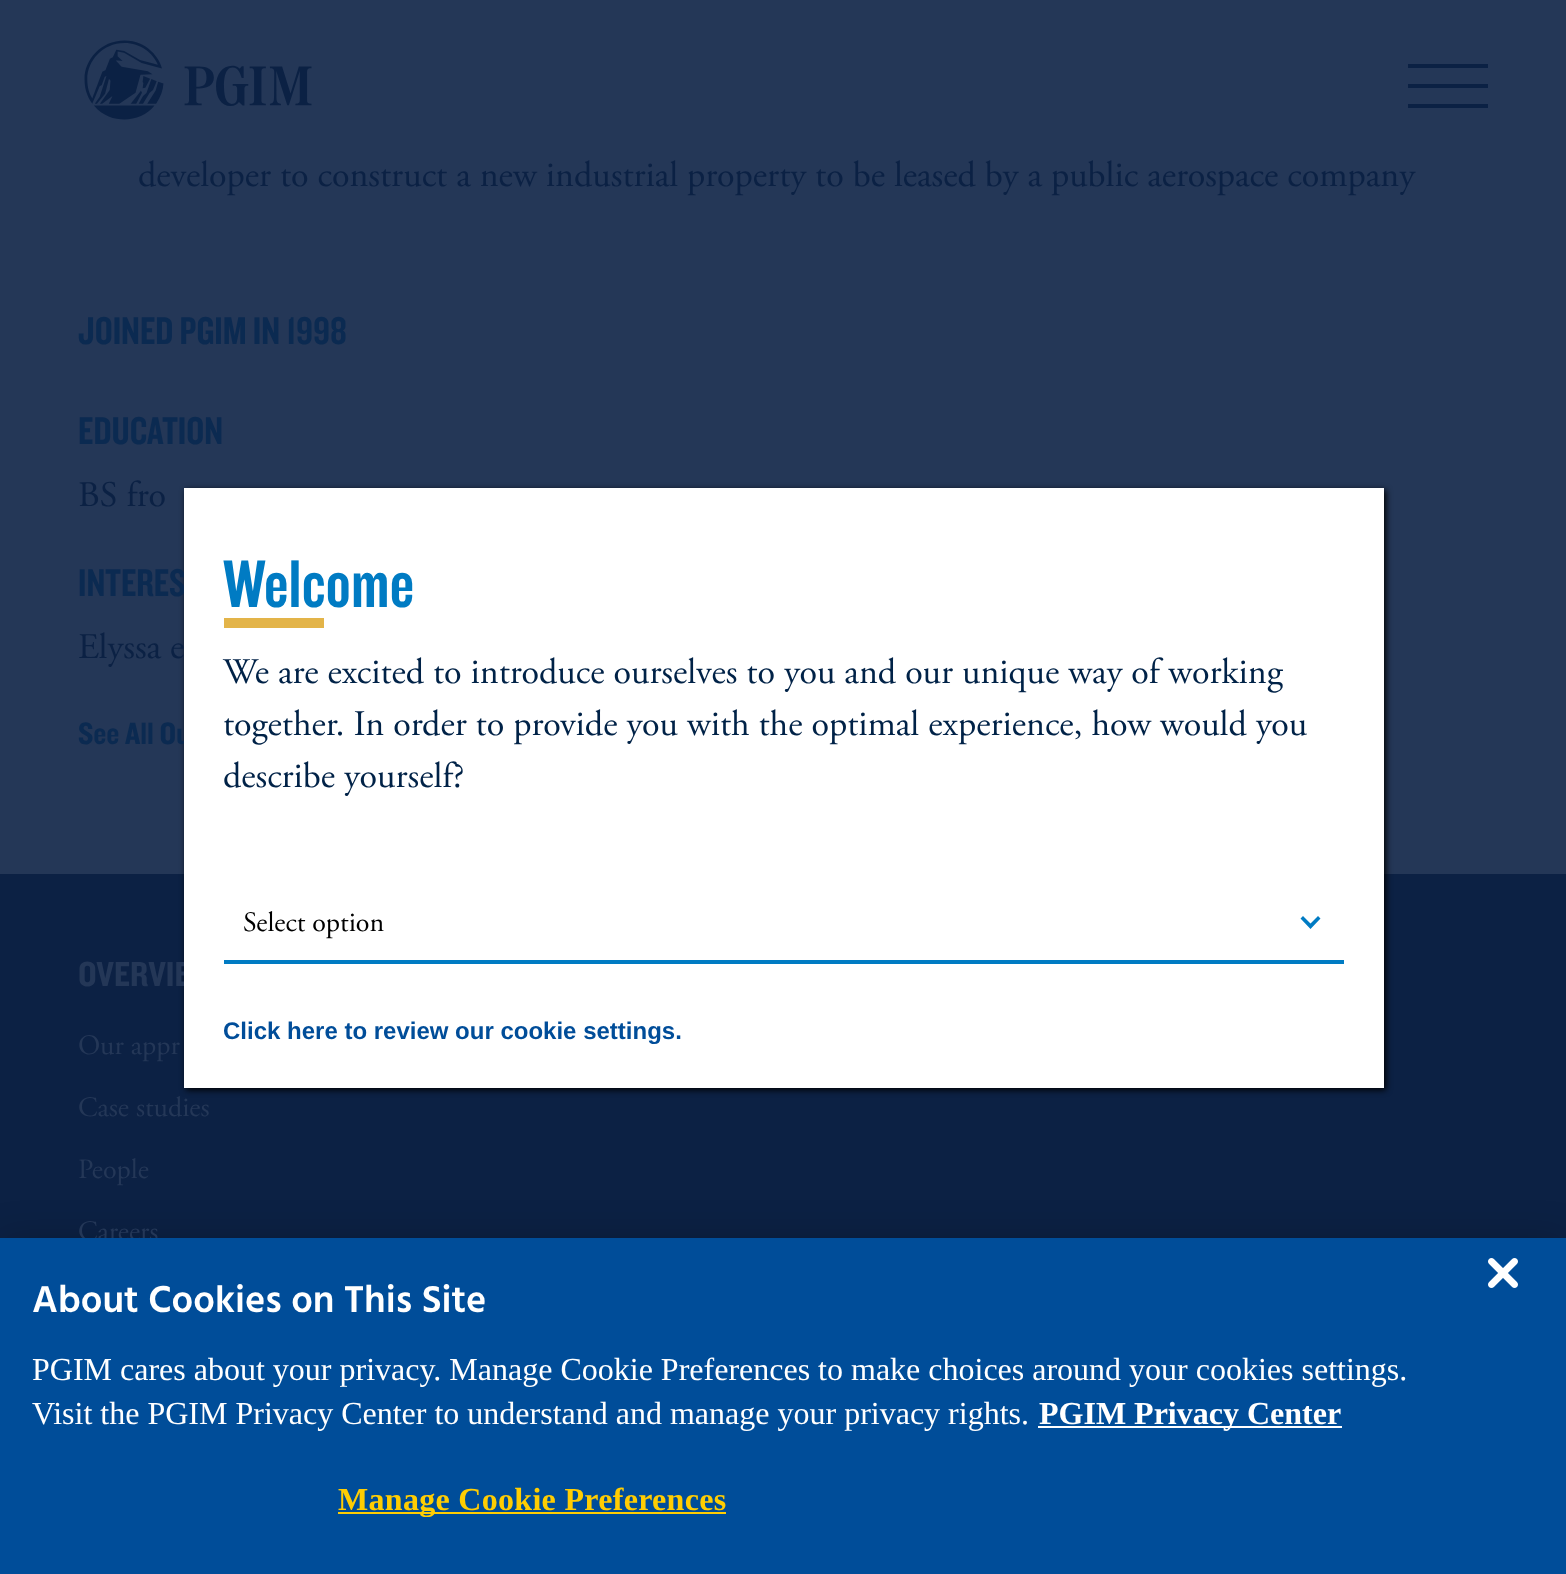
<!DOCTYPE html>
<meta charset="utf-8">
<style>body { margin: 0 } canvas { display: block }</style>
<canvas id="canvas" width="1566" height="1574"></canvas>
<img id="img1" src="img_01.png" hidden>
<img id="img2" src="img_02.png" hidden>
<script>
window.onload = function () {
	const canvas = document.getElementById("canvas");
	const ctx = canvas.getContext("2d");
	ctx.miterLimit = 4;
	ctx.fontKerning = "normal";
	function txt(s, x, y) {
		ctx.fillText(s, x, y);
	}
	function fill(x, y, w, h) {
		ctx.fillRect(x, y, w, h);
	}
	function img(id, x, y, w, h) {
		ctx.drawImage(document.getElementById(id), x, y, w, h);
	}

	ctx.fillStyle = "#243757";
	fill(0, 0, 1566, 1574);
	img("img1", 84, 40, 228, 80);
	ctx.fillStyle = "#0B2144";
	fill(1408, 64, 80, 4);
	fill(1408, 84, 80, 4);
	fill(1408, 104, 80, 4);
	ctx.fillStyle = "#0C2144";
	fill(0, 874, 1566, 364);
	ctx.fillStyle = "#000000";
	ctx.filter = "blur(3px)";
	ctx.beginPath();
	ctx.rect(186, 490, 1200, 600);
	ctx.fill();
	ctx.filter = "none";
	ctx.fillStyle = "rgba(0, 0, 0, 0.2)";
	ctx.filter = "blur(18px)";
	ctx.beginPath();
	ctx.rect(0, 1238, 1566, 336);
	ctx.fill();
	ctx.filter = "none";
	ctx.font = "36px Adobe Garamond";
	ctx.fillStyle = "#0B2144";
	txt("developer to construct a new industrial property to be leased by a public aerospace company", 138, 186);
	ctx.font = "40px 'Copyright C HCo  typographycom'";
	ctx.fillStyle = "#0B2A51";
	txt("JOINED PGIM IN 1998", 78, 344);
	txt("EDUCATION", 78, 444);
	ctx.font = "36px Adobe Garamond";
	ctx.fillStyle = "#0B2144";
	txt("BS fro", 78, 506);
	ctx.font = "40px 'Copyright C HCo  typographycom'";
	ctx.fillStyle = "#0B2A51";
	txt("INTERES", 78, 596);
	ctx.font = "36px Adobe Garamond";
	ctx.fillStyle = "#0B2144";
	txt("Elyssa e", 78, 658);
	ctx.font = "32px 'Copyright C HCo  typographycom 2'";
	ctx.fillStyle = "#0B2A51";
	txt("See All Ou", 78, 744);
	ctx.font = "36px 'Copyright C HCo  typographycom 2'";
	ctx.fillStyle = "#243757";
	txt("OVERVIE", 78, 986);
	ctx.fillStyle = "#FFFFFF";
	fill(184, 488, 1200, 600);
	ctx.fillStyle = "#007BC3";
	ctx.beginPath();
	ctx.moveTo(1318, 916);
	ctx.lineTo(1310.5, 923.5);
	ctx.lineTo(1303, 916);
	ctx.lineTo(1300.5, 918.5);
	ctx.lineTo(1310.5, 929);
	ctx.lineTo(1320.5, 918.5);
	ctx.closePath();
	ctx.fill();
	ctx.font = "28px Adobe Garamond";
	ctx.fillStyle = "#000000";
	txt("Select option", 243, 931);
	ctx.fillStyle = "#007BC3";
	fill(224, 960, 1120, 4);
	ctx.font = "bold 24px Liberation Sans";
	ctx.fillStyle = "#004D99";
	txt("Click here to review our cookie settings.", 223, 1039);
	ctx.font = "36px Adobe Garamond";
	ctx.fillStyle = "#002247";
	txt("describe yourself?", 223, 787);
	txt("together. In order to provide you with the optimal experience, how would you", 223, 735);
	txt("We are excited to introduce ourselves to you and our unique way of working", 223, 683);
	ctx.font = "70px 'Copyright C HCo  typographycom'";
	ctx.fillStyle = "#007BC3";
	txt("Welcome", 223, 607);
	ctx.fillStyle = "#E3B449";
	fill(224, 618, 100, 10);
	ctx.font = "28px Adobe Garamond";
	ctx.fillStyle = "#243757";
	txt("Our appr", 78, 1054);
	txt("Case studies", 78, 1116);
	txt("People", 78, 1178);
	txt("Careers", 78, 1240);
	ctx.fillStyle = "#004D99";
	fill(0, 1238, 1566, 336);
	img("img2", 1488, 1258, 30, 30);
	ctx.font = "600 38.4px Hind";
	ctx.fillStyle = "#FFFFFF";
	txt("About Cookies on This Site", 32, 1312);
	ctx.font = "32px Liberation Serif";
	txt("PGIM cares about your privacy. Manage Cookie Preferences to make choices around your cookies settings.", 32, 1380);
	txt("Visit the PGIM Privacy Center to understand and manage your privacy rights.", 32, 1424);
	fill(1038, 1426, 304, 2);
	ctx.font = "bold 32px Liberation Serif";
	txt("PGIM Privacy Center", 1039, 1424);
	ctx.fillStyle = "#FFCD02";
	fill(338, 1512, 388, 2);
	ctx.letterSpacing = "0.3px";
	txt("Manage Cookie Preferences", 338, 1510);
};
</script>
